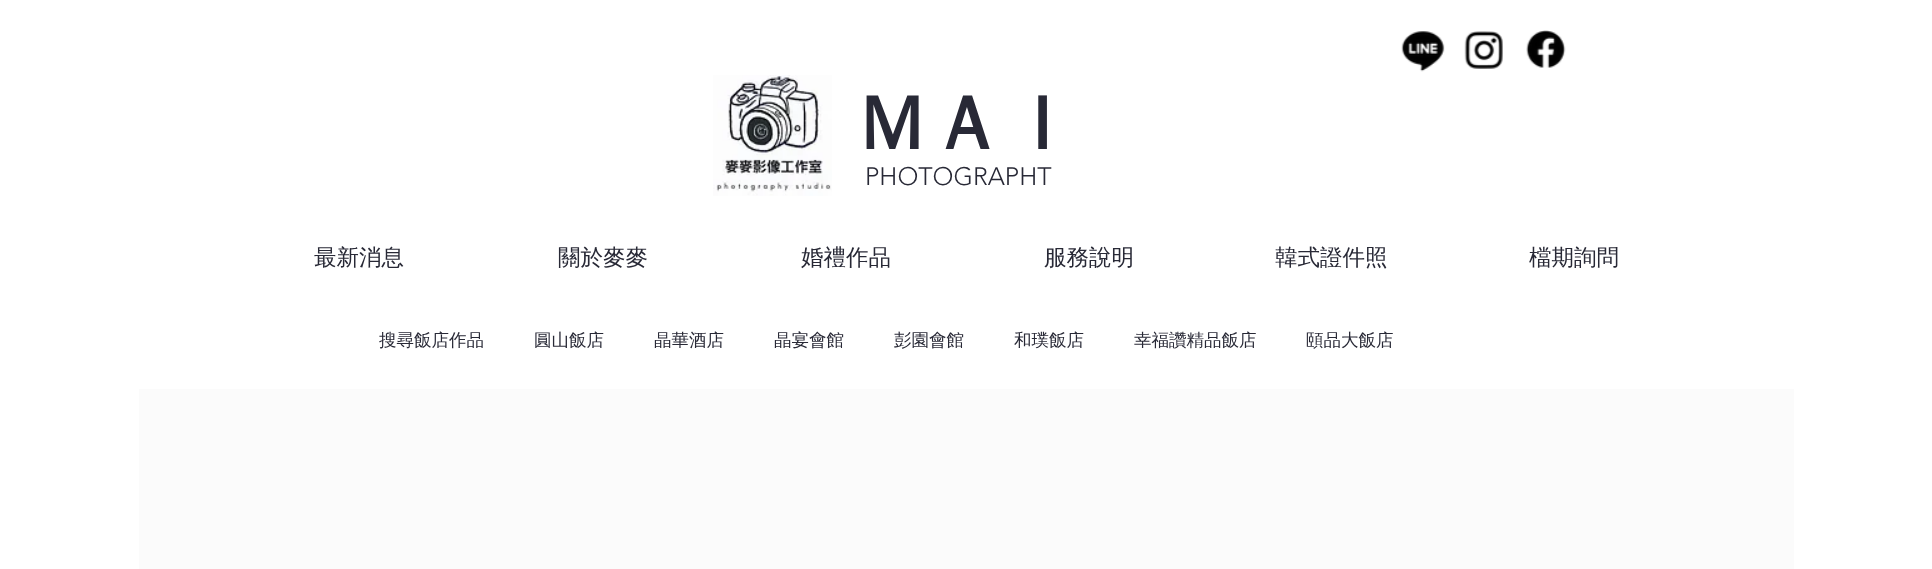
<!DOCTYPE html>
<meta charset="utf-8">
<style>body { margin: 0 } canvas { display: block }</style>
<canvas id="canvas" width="1932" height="569"></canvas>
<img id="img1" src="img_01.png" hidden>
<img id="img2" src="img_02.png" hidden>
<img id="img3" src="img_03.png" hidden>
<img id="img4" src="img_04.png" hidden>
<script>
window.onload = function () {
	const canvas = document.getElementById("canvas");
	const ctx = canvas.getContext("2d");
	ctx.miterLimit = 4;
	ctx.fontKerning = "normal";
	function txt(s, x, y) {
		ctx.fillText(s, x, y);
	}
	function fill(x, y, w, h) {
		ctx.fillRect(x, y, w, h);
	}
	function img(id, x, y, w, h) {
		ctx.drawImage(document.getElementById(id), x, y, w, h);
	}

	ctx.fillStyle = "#FFFFFF";
	fill(0, 0, 1932, 569);
	img("img1", 1401, 31, 44, 41);
	img("img2", 1464, 31, 39, 38);
	img("img3", 1526, 30, 40, 38);
	img("img4", 713, 75, 119, 121);
	ctx.fillStyle = "#FBFBFB";
	fill(139, 389, 1655, 180);
	ctx.font = "bold 75px WenQuanYi Zen Hei";
	ctx.fillStyle = "#282936";
	txt("ＭＡＩ", 854, 149);
	ctx.font = "300 25px 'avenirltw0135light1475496'";
	txt("PHOTOGRAPHT", 865, 185);
	ctx.font = "500 22.5px WenQuanYi Zen Hei";
	txt("最新消息", 314, 265);
	txt("關於麥麥", 558, 265);
	txt("婚禮作品", 801, 265);
	txt("服務說明", 1044, 265);
	txt("韓式證件照", 1275, 265);
	txt("檔期詢問", 1529, 265);
	ctx.font = "500 17.5px WenQuanYi Zen Hei";
	txt("搜尋飯店作品", 379, 346);
	txt("圓山飯店", 534, 346);
	txt("晶華酒店", 654, 346);
	txt("晶宴會館", 774, 346);
	txt("彭園會館", 894, 346);
	txt("和璞飯店", 1014, 346);
	txt("幸福讚精品飯店", 1134, 346);
	txt("頤品大飯店", 1306, 346);
};
</script>
